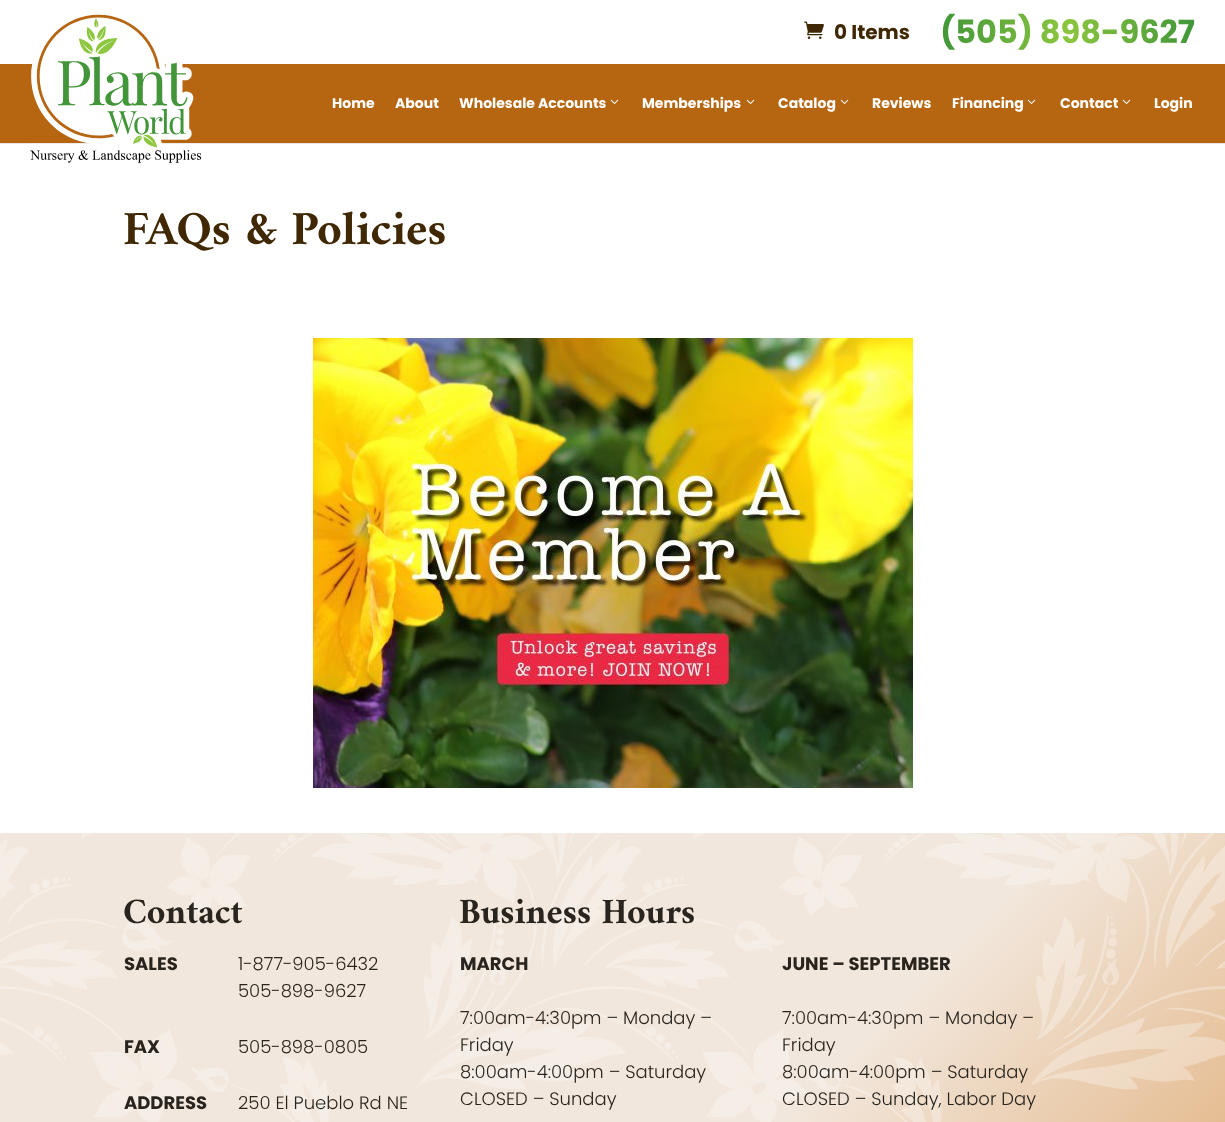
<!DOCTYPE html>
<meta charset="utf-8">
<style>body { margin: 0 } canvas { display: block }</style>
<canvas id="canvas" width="1225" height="1122"></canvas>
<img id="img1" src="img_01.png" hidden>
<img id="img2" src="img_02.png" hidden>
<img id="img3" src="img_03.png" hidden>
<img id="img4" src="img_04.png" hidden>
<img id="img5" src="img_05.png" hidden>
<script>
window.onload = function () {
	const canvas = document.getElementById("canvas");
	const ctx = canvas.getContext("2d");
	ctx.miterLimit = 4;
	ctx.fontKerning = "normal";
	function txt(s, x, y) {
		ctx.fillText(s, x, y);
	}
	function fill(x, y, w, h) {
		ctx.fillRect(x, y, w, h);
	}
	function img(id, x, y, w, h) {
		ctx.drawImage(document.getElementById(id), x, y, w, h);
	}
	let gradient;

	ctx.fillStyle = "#FFFFFF";
	fill(0, 0, 1225, 1122);
	img("img1", 804, 21, 20, 18);
	ctx.fillStyle = "#E6E6E6";
	fill(0, 143, 1225, 1);
	ctx.fillStyle = "#B66611";
	fill(0, 64, 1225, 79);
	img("img2", 30, 14, 172, 149);
	img("img3", 610, 99, 9, 5);
	img("img3", 746, 99, 9, 5);
	img("img3", 840, 99, 9, 5);
	img("img3", 1027, 99, 9, 5);
	img("img3", 1122, 99, 9, 5);
	img("img4", 313, 338, 600, 450);
	img("img5", 0, 833, 1225, 289);
	ctx.font = "bold 20px Poppins";
	ctx.fillStyle = "#3F2803";
	txt("0 Items", 834, 39);
	ctx.font = "bold 32px Poppins";
	gradient = ctx.createLinearGradient(940, 32, 1195, 31);
	gradient.addColorStop(0, "#419639");
	gradient.addColorStop(0.5, "#8CC63F");
	gradient.addColorStop(1, "#419639");
	ctx.fillStyle = gradient;
	txt("(505) 898-9627", 940, 43);
	ctx.font = "bold 14px Poppins";
	ctx.fillStyle = "#FFFFFF";
	txt("Home", 332, 108);
	txt("About", 395, 108);
	txt("Wholesale Accounts", 459, 108);
	txt("Memberships", 642, 108);
	txt("Catalog", 778, 108);
	txt("Reviews", 872, 108);
	txt("Financing", 952, 108);
	txt("Contact", 1060, 108);
	txt("Login", 1154, 108);
	ctx.font = "bold 48px Amiri";
	ctx.fillStyle = "#3F2803";
	txt("FAQs & Policies", 123, 244);
	ctx.font = "bold 36px Amiri";
	ctx.fillStyle = "#29251E";
	txt("Contact", 123, 923);
	ctx.font = "bold 18px Poppins";
	txt("SALES", 124, 970);
	ctx.font = "300 18px Poppins";
	txt("1-877-905-6432", 238, 970);
	txt("505-898-9627", 238, 997);
	ctx.font = "bold 18px Poppins";
	txt("FAX", 124, 1053);
	ctx.font = "300 18px Poppins";
	txt("505-898-0805", 238, 1053);
	ctx.font = "bold 18px Poppins";
	txt("ADDRESS", 124, 1109);
	ctx.font = "300 18px Poppins";
	txt("250 El Pueblo Rd NE", 238, 1109);
	ctx.font = "bold 36px Amiri";
	txt("Business Hours", 459, 923);
	ctx.font = "bold 18px Poppins";
	txt("MARCH", 460, 970);
	ctx.font = "300 18px Poppins";
	txt("7:00am-4:30pm – Monday –", 460, 1024);
	txt("Friday", 460, 1051);
	txt("8:00am-4:00pm – Saturday", 460, 1078);
	txt("CLOSED – Sunday", 460, 1105);
	ctx.font = "bold 18px Poppins";
	txt("JUNE – SEPTEMBER", 782, 970);
	ctx.font = "300 18px Poppins";
	txt("7:00am-4:30pm – Monday –", 782, 1024);
	txt("Friday", 782, 1051);
	txt("8:00am-4:00pm – Saturday", 782, 1078);
	txt("CLOSED – Sunday, Labor Day", 782, 1105);
};
</script>
